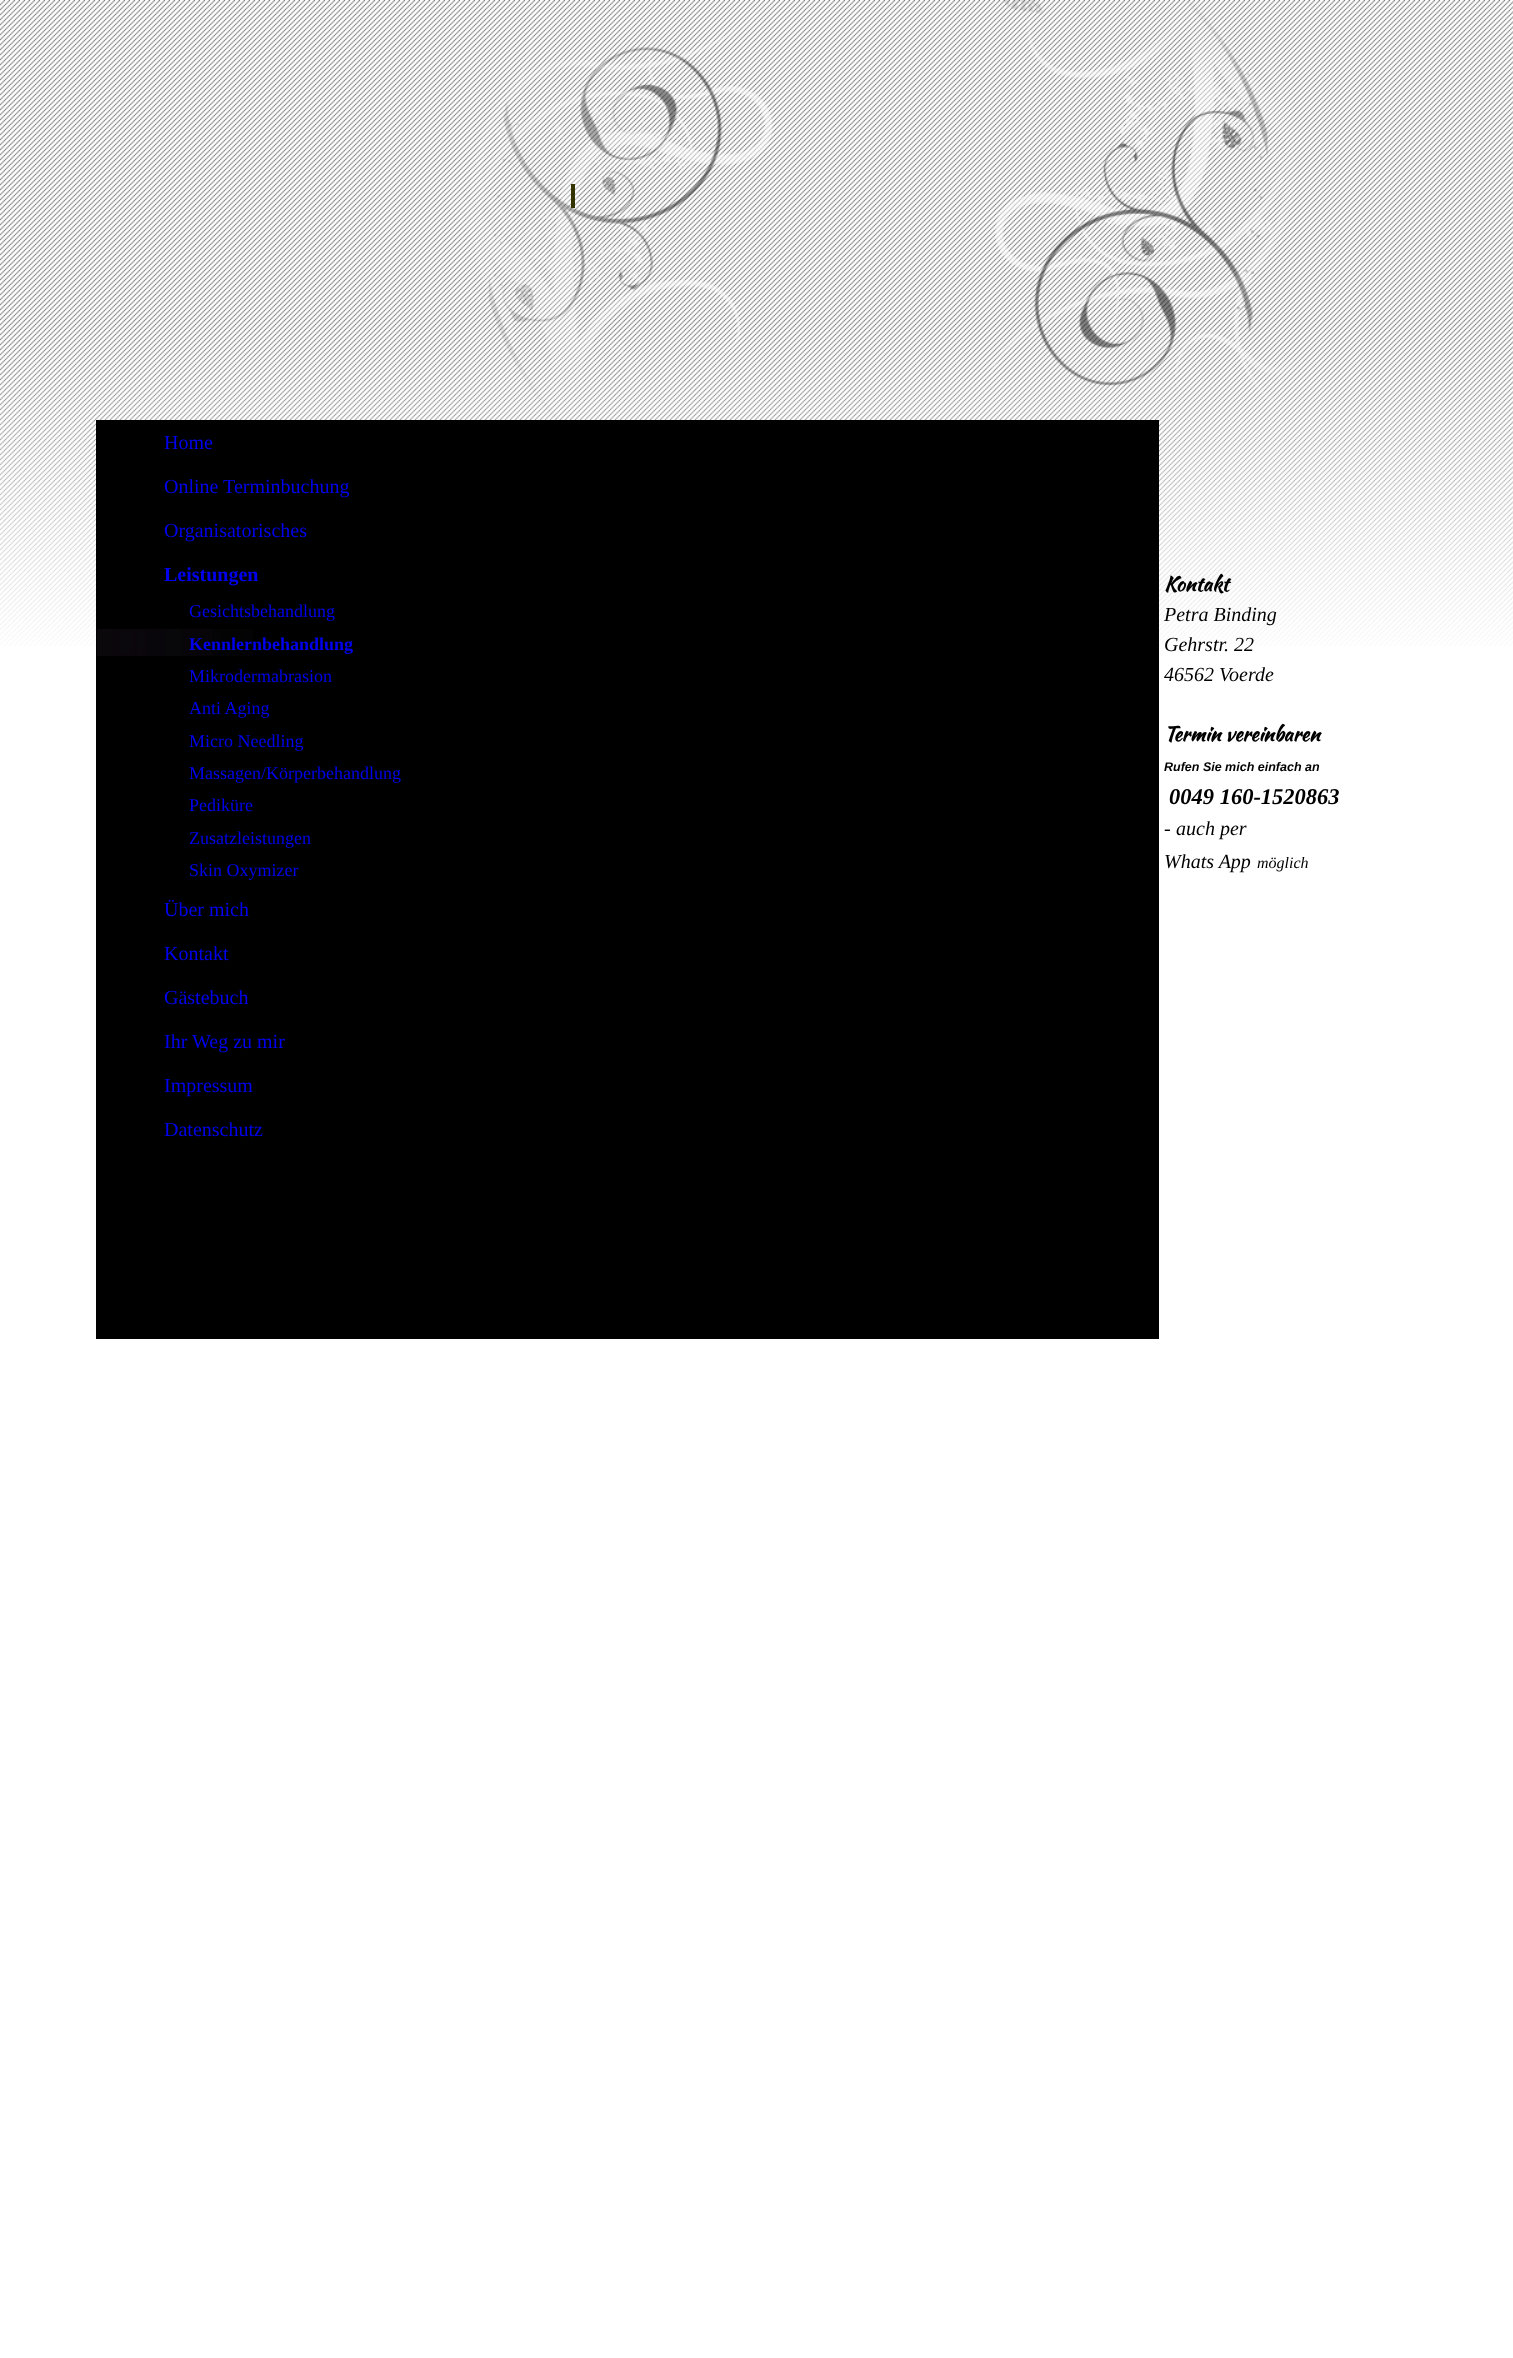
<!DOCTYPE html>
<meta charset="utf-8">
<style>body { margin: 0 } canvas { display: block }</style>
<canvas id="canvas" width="1513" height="2358"></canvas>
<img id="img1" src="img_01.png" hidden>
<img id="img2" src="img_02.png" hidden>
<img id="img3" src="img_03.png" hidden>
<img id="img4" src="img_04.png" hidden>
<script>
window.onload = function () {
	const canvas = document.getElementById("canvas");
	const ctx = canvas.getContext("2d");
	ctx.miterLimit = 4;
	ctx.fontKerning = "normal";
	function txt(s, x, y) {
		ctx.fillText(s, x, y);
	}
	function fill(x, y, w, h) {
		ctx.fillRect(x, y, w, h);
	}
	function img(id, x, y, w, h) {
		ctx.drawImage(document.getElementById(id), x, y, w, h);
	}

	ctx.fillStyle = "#FFFFFF";
	fill(0, 0, 1513, 2358);
	img("img1", 0, 0, 1513, 646);
	img("img2", 449, 0, 852, 420);
	ctx.fillStyle = "#333300";
	fill(571, 184, 4, 24);
	ctx.fillStyle = "#000000";
	fill(96, 420, 1063, 919);
	img("img3", 97, 629, 156, 27);
	img("img4", 97, 629, 115, 27);
	ctx.font = "20px Liberation Serif";
	ctx.fillStyle = "#0000EE";
	txt("Home", 164, 449);
	txt("Online Terminbuchung", 164, 493);
	txt("Organisatorisches", 164, 537);
	ctx.font = "bold 20px Liberation Serif";
	txt("Leistungen", 164, 581);
	ctx.font = "18px Liberation Serif";
	txt("Gesichtsbehandlung", 189, 617);
	ctx.font = "bold 18px Liberation Serif";
	txt("Kennlernbehandlung", 189, 650);
	ctx.font = "18px Liberation Serif";
	txt("Mikrodermabrasion", 189, 682);
	txt("Anti Aging", 189, 714);
	txt("Micro Needling", 189, 747);
	txt("Massagen/Körperbehandlung", 189, 779);
	txt("Pediküre", 189, 811);
	txt("Zusatzleistungen", 189, 844);
	txt("Skin Oxymizer", 189, 876);
	ctx.font = "20px Liberation Serif";
	txt("Über mich", 164, 916);
	txt("Kontakt", 164, 960);
	txt("Gästebuch", 164, 1004);
	txt("Ihr", 164, 1048);
	txt("Weg zu mir", 192, 1048);
	txt("Impressum", 164, 1092);
	txt("Datenschutz", 164, 1136);
	ctx.font = "bold 20px Kaushan Script";
	ctx.fillStyle = "#000000";
	txt("Kontakt", 1164, 591);
	ctx.font = "italic 20px Liberation Serif";
	txt("Petra Binding", 1164, 621);
	txt("Gehrstr. 22", 1164, 651);
	txt("46562 Voerde", 1164, 681);
	ctx.font = "bold 20px Kaushan Script";
	txt("Termin vereinbaren", 1164, 741);
	ctx.font = "italic bold 12.5px Liberation Sans";
	txt("Rufen Sie mich einfach an", 1164, 771);
	ctx.font = "italic bold 22.5px Liberation Serif";
	txt("0049 160-1520863", 1169, 804);
	ctx.font = "20px Liberation Serif";
	txt("-", 1164, 835);
	ctx.font = "italic 20px Liberation Serif";
	txt("auch per", 1176, 835);
	txt("Whats App", 1164, 868);
	ctx.font = "italic 16px Liberation Serif";
	txt("möglich", 1257, 868);
};
</script>
